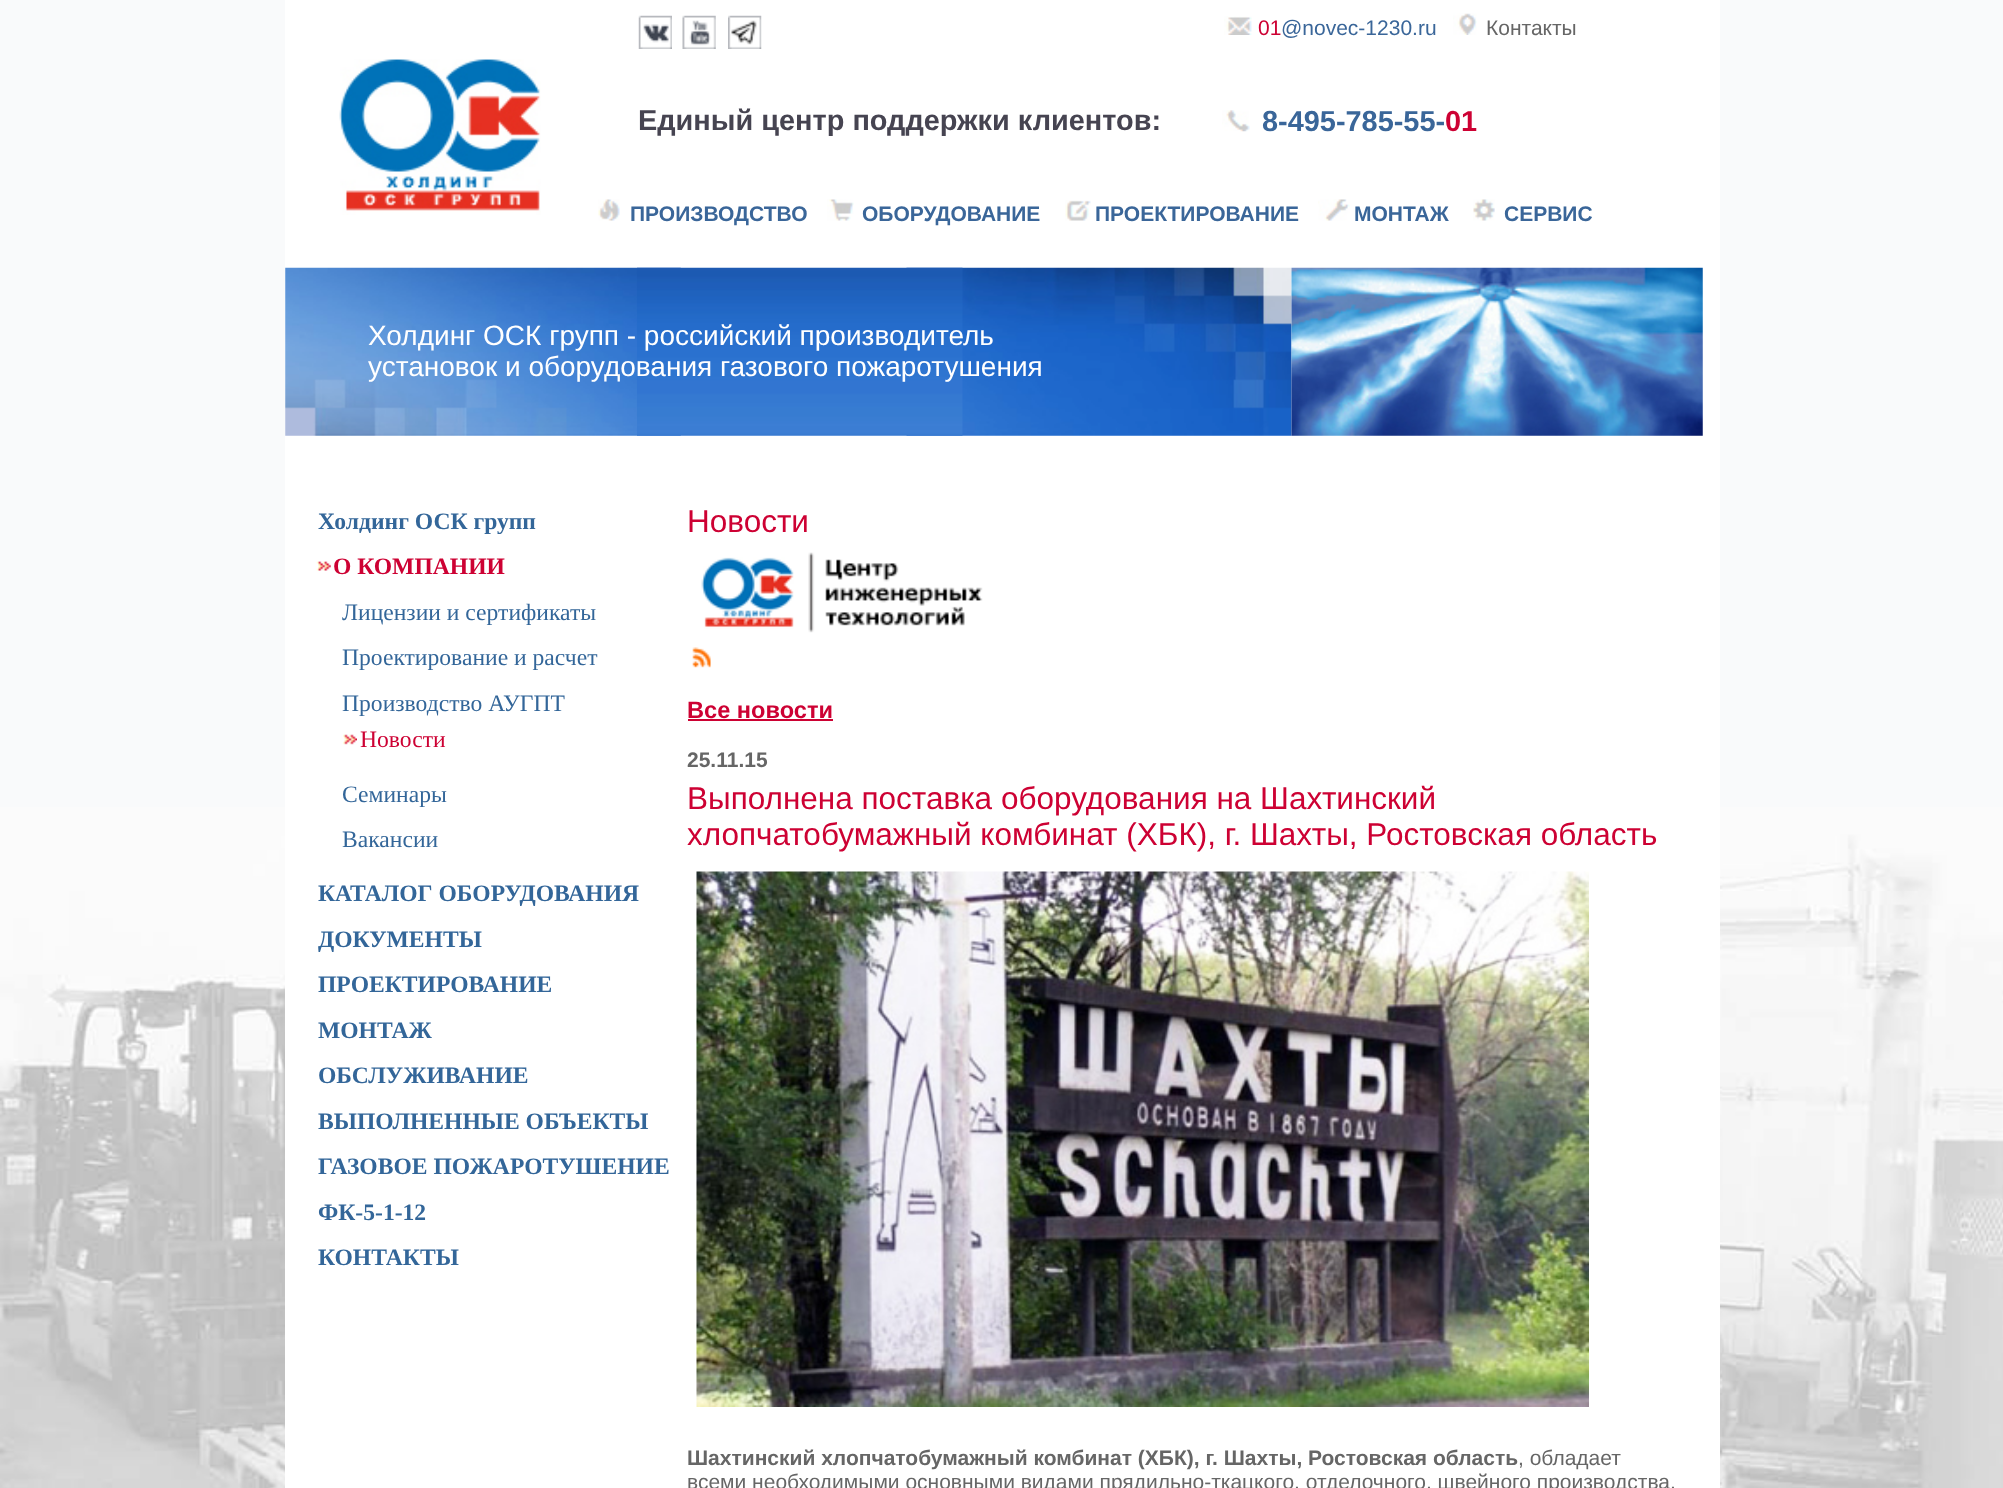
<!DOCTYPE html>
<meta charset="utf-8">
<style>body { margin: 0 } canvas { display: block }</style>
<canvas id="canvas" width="2003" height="1488"></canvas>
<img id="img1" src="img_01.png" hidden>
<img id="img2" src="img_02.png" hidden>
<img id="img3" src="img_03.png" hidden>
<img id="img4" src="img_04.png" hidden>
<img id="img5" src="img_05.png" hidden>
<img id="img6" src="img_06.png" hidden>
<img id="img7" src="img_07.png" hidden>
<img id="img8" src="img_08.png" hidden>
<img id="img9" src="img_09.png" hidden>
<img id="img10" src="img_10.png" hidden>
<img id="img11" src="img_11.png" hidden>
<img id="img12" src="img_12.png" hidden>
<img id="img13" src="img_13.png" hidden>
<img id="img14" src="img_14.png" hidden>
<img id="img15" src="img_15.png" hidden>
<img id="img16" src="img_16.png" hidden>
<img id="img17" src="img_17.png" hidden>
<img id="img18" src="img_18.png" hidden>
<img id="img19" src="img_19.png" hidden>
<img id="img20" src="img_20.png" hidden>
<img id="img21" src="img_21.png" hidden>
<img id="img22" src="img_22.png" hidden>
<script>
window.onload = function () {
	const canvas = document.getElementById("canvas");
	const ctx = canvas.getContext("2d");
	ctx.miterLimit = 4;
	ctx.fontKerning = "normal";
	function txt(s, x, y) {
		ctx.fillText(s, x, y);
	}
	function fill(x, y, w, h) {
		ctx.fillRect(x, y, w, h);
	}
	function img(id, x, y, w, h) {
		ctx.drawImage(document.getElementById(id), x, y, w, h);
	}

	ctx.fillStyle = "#F9FAFB";
	fill(0, 0, 2003, 1488);
	img("img1", 0, 807, 2003, 681);
	ctx.fillStyle = "#FFFFFF";
	fill(285, 0, 1435, 1488);
	img("img2", 339, 59, 202, 156);
	img("img3", 638, 15, 34, 34);
	img("img4", 682, 15, 34, 34);
	img("img5", 728, 15, 34, 34);
	img("img6", 1224, 16, 28, 19);
	img("img7", 1453, 13, 24, 22);
	img("img8", 1222, 110, 28, 22);
	img("img9", 598, 199, 22, 22);
	img("img10", 827, 199, 27, 22);
	img("img11", 1065, 200, 26, 21);
	img("img12", 1318, 199, 32, 22);
	img("img13", 1473, 199, 22, 22);
	img("img14", 285, 267, 396, 169);
	img("img15", 906, 267, 386, 169);
	img("img16", 637, 267, 326, 169);
	img("img17", 1291, 267, 412, 169);
	img("img18", 316, 561, 15, 10);
	img("img19", 343, 734, 14, 11);
	img("img20", 701, 552, 282, 81);
	img("img21", 692, 647, 19, 21);
	ctx.fillStyle = "#CD0133";
	fill(688, 719, 145, 2);
	img("img22", 696, 871, 893, 536);
	ctx.font = "21px Liberation Sans";
	txt("01", 1258, 35);
	ctx.fillStyle = "#3A6699";
	txt("@novec-1230.ru", 1281, 35);
	ctx.fillStyle = "#666666";
	txt("Контакты", 1486, 35);
	ctx.font = "bold 28.9px Liberation Sans";
	ctx.fillStyle = "#464451";
	txt("Единый центр поддержки клиентов:", 638, 130);
	ctx.fillStyle = "#3A6699";
	txt("8-495-785-55-", 1262, 131);
	ctx.fillStyle = "#CD0133";
	txt("01", 1445, 131);
	ctx.font = "bold 21px Liberation Sans";
	ctx.fillStyle = "#3A6699";
	txt("ПРОИЗВОДСТВО", 630, 221);
	txt("ОБОРУДОВАНИЕ", 862, 221);
	txt("ПРОЕКТИРОВАНИЕ", 1095, 221);
	txt("МОНТАЖ", 1354, 221);
	txt("СЕРВИС", 1504, 221);
	ctx.font = "28px Liberation Sans";
	ctx.fillStyle = "#FFFFFF";
	txt("Холдинг ОСК групп - российский производитель", 368, 345);
	txt("установок и оборудования газового пожаротушения", 368, 376);
	ctx.font = "bold 23.6px Liberation Serif";
	ctx.fillStyle = "#336699";
	txt("Холдинг ОСК групп", 318, 529);
	ctx.fillStyle = "#CD0133";
	txt("О КОМПАНИИ", 333, 574);
	ctx.font = "23.6px Liberation Serif";
	ctx.fillStyle = "#336699";
	txt("Лицензии и сертификаты", 342, 620);
	txt("Проектирование и расчет", 342, 665);
	txt("Производство АУГПТ", 342, 711);
	ctx.fillStyle = "#CD0133";
	txt("Новости", 360, 747);
	ctx.fillStyle = "#336699";
	txt("Семинары", 342, 802);
	txt("Вакансии", 342, 847);
	ctx.font = "bold 23.6px Liberation Serif";
	txt("КАТАЛОГ ОБОРУДОВАНИЯ", 318, 901);
	txt("ДОКУМЕНТЫ", 318, 947);
	txt("ПРОЕКТИРОВАНИЕ", 318, 992);
	txt("МОНТАЖ", 318, 1038);
	txt("ОБСЛУЖИВАНИЕ", 318, 1083);
	txt("ВЫПОЛНЕННЫЕ ОБЪЕКТЫ", 318, 1129);
	txt("ГАЗОВОЕ ПОЖАРОТУШЕНИЕ", 318, 1174);
	txt("ФК-5-1-12", 318, 1220);
	txt("КОНТАКТЫ", 318, 1265);
	ctx.font = "31.5px Liberation Sans";
	ctx.fillStyle = "#CD0133";
	txt("Новости", 687, 532);
	ctx.font = "bold 23.6px Liberation Sans";
	txt("Все новости", 687, 718);
	ctx.font = "bold 21px Liberation Sans";
	ctx.fillStyle = "#666666";
	txt("25.11.15", 687, 767);
	ctx.font = "31.5px Liberation Sans";
	ctx.fillStyle = "#CD0133";
	txt("Выполнена поставка оборудования на Шахтинский", 687, 809);
	txt("хлопчатобумажный комбинат (ХБК), г. Шахты, Ростовская область", 687, 845);
	ctx.font = "bold 21px Liberation Sans";
	ctx.fillStyle = "#666666";
	txt("Шахтинский хлопчатобумажный комбинат (ХБК), г. Шахты, Ростовская область", 687, 1465);
	ctx.font = "21px Liberation Sans";
	txt(", обладает", 1518, 1465);
	txt("всеми необходимыми основными видами прядильно-ткацкого, отделочного, швейного производства,", 687, 1489);
};
</script>
